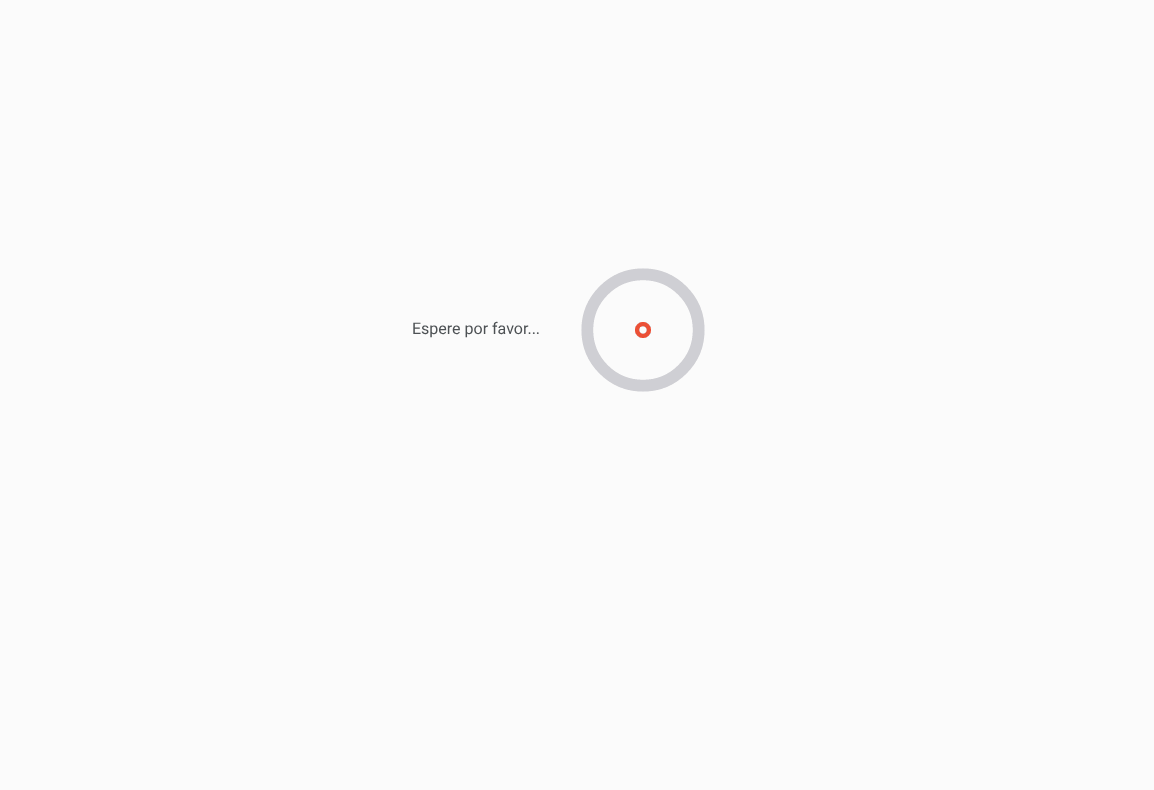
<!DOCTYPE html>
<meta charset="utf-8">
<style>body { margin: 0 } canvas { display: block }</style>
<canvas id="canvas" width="1154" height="790"></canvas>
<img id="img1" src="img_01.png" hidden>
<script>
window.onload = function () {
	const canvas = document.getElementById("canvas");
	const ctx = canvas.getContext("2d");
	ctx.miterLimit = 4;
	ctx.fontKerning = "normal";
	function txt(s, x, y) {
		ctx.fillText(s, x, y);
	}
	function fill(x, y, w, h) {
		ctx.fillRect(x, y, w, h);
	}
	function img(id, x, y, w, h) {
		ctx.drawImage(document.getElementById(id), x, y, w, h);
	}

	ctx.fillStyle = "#FBFBFB";
	fill(0, 0, 1154, 790);
	img("img1", 581, 268, 124, 124);
	ctx.font = "16px Roboto";
	ctx.fillStyle = "#4D5154";
	txt("Espere por favor...", 412, 334);
};
</script>
